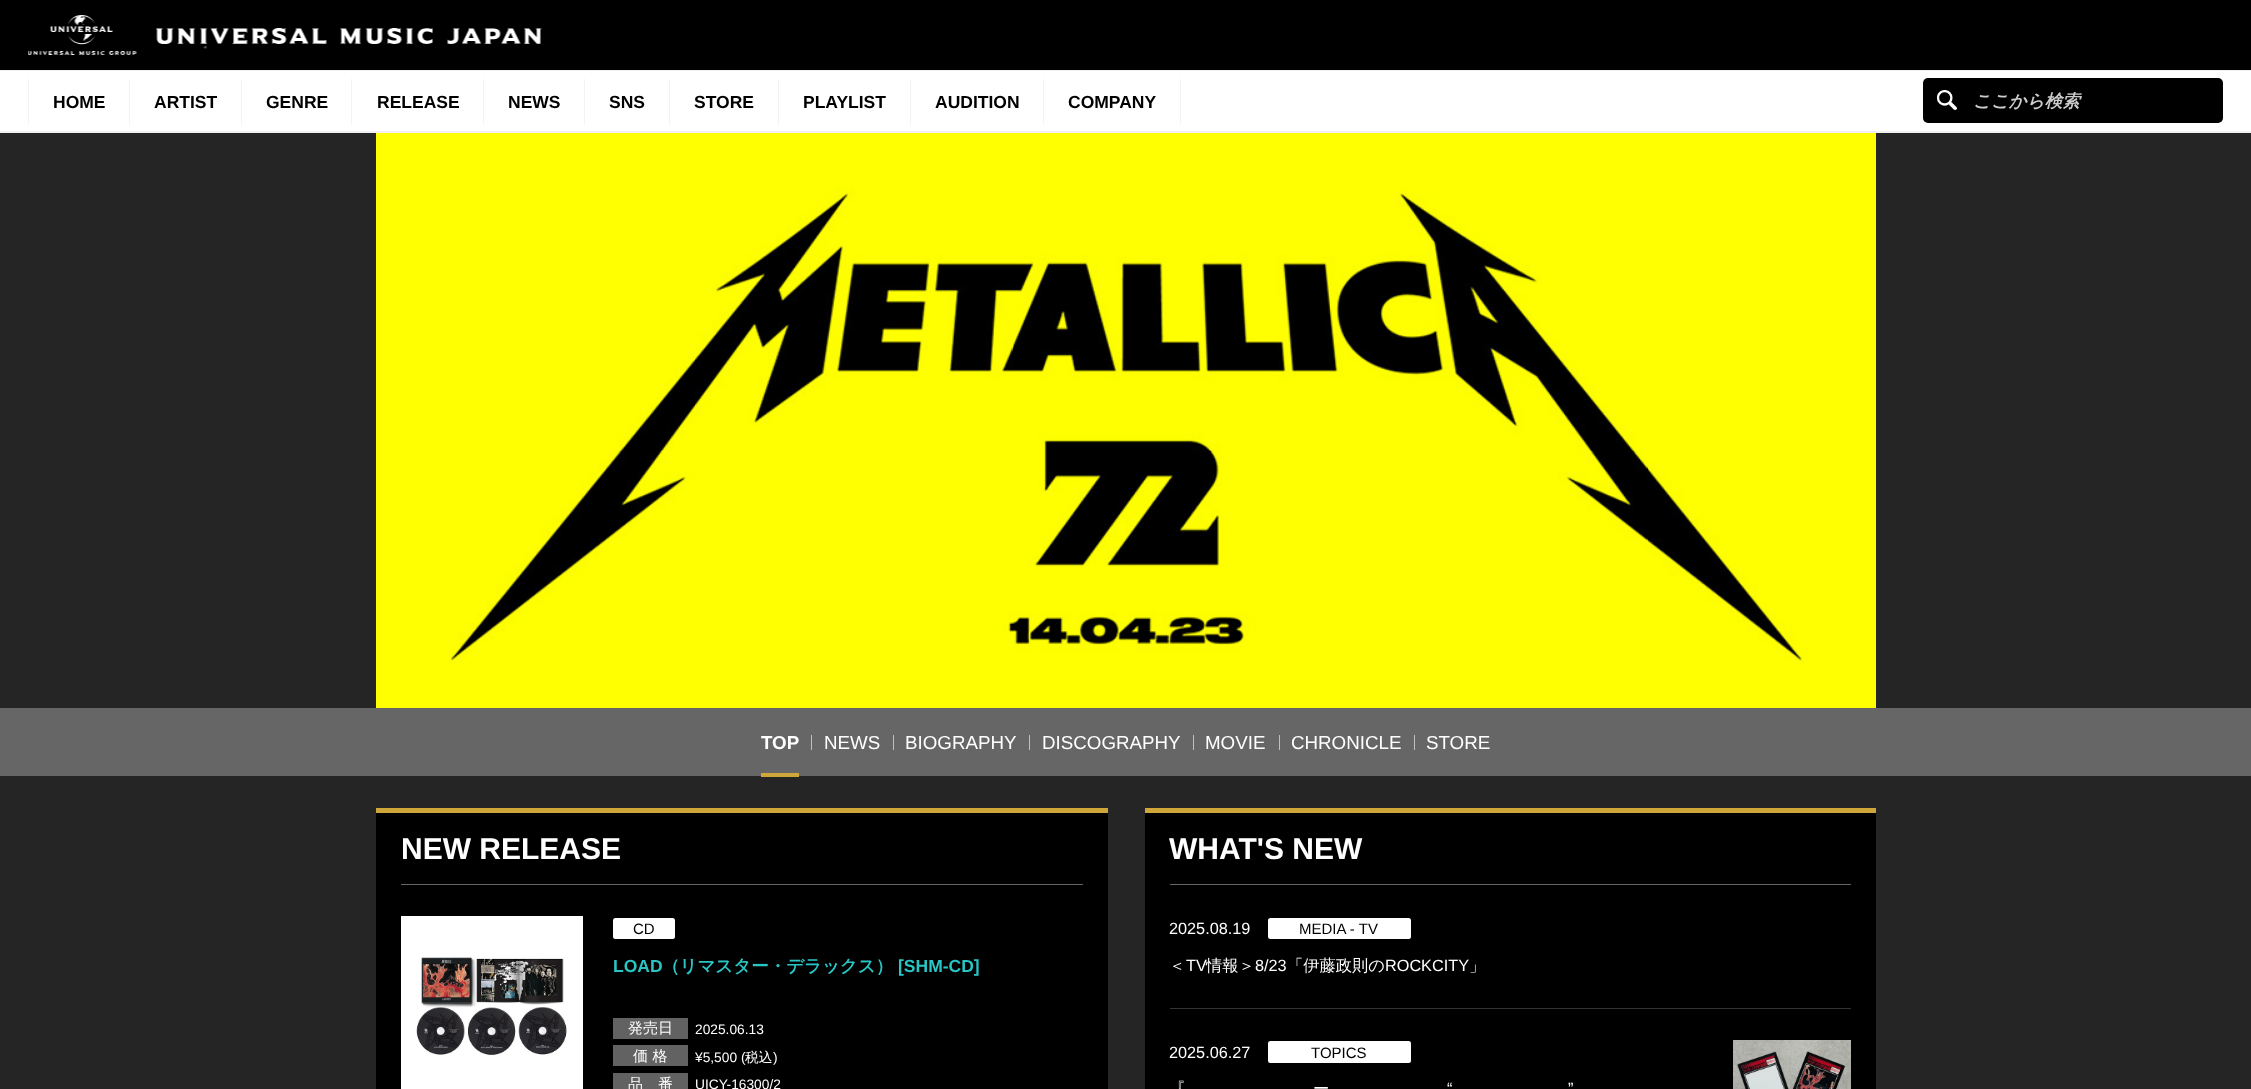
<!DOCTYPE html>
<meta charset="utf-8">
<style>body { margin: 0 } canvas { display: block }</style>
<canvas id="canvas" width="2251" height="1089"></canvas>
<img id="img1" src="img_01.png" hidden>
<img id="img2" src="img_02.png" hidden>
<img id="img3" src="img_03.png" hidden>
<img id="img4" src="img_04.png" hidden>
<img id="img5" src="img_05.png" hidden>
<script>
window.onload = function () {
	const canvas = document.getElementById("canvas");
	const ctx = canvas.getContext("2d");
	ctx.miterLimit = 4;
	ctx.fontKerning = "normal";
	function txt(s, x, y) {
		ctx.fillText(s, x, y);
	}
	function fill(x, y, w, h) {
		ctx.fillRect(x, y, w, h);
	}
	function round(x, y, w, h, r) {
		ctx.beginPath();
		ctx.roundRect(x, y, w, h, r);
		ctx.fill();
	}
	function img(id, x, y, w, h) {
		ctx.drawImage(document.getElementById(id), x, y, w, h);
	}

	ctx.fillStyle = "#F1F1F1";
	fill(0, 0, 2251, 1089);
	ctx.fillStyle = "#000000";
	fill(0, 0, 2251, 70);
	img("img1", 28, 15, 514, 40);
	ctx.fillStyle = "#FFFFFF";
	fill(0, 71, 2251, 60);
	ctx.fillStyle = "#F3F3F3";
	fill(129, 79, 1, 46);
	fill(28, 79, 1, 46);
	fill(241, 79, 1, 46);
	fill(351, 79, 1, 46);
	fill(483, 79, 1, 46);
	fill(584, 79, 1, 46);
	fill(669, 79, 1, 46);
	fill(778, 79, 1, 46);
	fill(910, 79, 1, 46);
	fill(1043, 79, 1, 46);
	fill(1180, 79, 1, 46);
	ctx.fillStyle = "#000000";
	round(1923, 78, 300, 45, 5);
	img("img2", 1937, 90, 20, 20);
	ctx.fillStyle = "#252525";
	fill(0, 133, 2251, 956);
	img("img3", 376, 133, 1500, 575);
	ctx.fillStyle = "#666666";
	fill(0, 708, 2251, 68);
	ctx.fillStyle = "#CEA639";
	fill(761, 773, 38, 4);
	ctx.fillStyle = "#BFBFBF";
	fill(811, 735, 1, 15);
	fill(893, 735, 1, 15);
	fill(1029, 735, 1, 15);
	fill(1193, 735, 1, 15);
	fill(1279, 735, 1, 15);
	fill(1414, 735, 1, 15);
	ctx.fillStyle = "#CEA639";
	fill(376, 808, 732, 5);
	ctx.fillStyle = "#000000";
	fill(376, 813, 732, 276);
	ctx.fillStyle = "#666666";
	fill(401, 884, 682, 1);
	ctx.fillStyle = "#FFFFFF";
	fill(401, 916, 182, 173);
	img("img4", 416, 957, 151, 99);
	round(613, 918, 62, 21, 2.5);
	ctx.fillStyle = "#626262";
	fill(613, 1018, 75, 21);
	fill(613, 1045, 75, 21);
	fill(613, 1073, 75, 16);
	ctx.fillStyle = "#CEA639";
	fill(1145, 808, 731, 5);
	ctx.fillStyle = "#000000";
	fill(1145, 813, 731, 276);
	ctx.fillStyle = "#666666";
	fill(1170, 884, 681, 1);
	ctx.fillStyle = "#FFFFFF";
	round(1268, 918, 143, 21, 2.5);
	ctx.fillStyle = "#333333";
	fill(1170, 1008, 681, 1);
	ctx.fillStyle = "#FFFFFF";
	round(1268, 1041, 143, 22, 2.5);
	img("img5", 1733, 1040, 118, 49);
	ctx.font = "bold 17.5px Liberation Sans";
	ctx.fillStyle = "#000000";
	txt("HOME", 53, 108);
	txt("ARTIST", 154, 108);
	txt("GENRE", 266, 108);
	txt("RELEASE", 377, 108);
	txt("NEWS", 508, 108);
	txt("SNS", 609, 108);
	txt("STORE", 694, 108);
	txt("PLAYLIST", 803, 108);
	txt("AUDITION", 935, 108);
	txt("COMPANY", 1068, 108);
	ctx.font = "italic bold 17.5px WenQuanYi Zen Hei";
	ctx.fillStyle = "#CCCCCC";
	txt("ここから検索", 1973, 107);
	ctx.font = "bold 18.75px Liberation Sans";
	ctx.fillStyle = "#FFFFFF";
	txt("TOP", 761, 749);
	ctx.font = "18.75px Liberation Sans";
	txt("NEWS", 824, 749);
	txt("BIOGRAPHY", 905, 749);
	txt("DISCOGRAPHY", 1042, 749);
	txt("MOVIE", 1205, 749);
	txt("CHRONICLE", 1291, 749);
	txt("STORE", 1426, 749);
	ctx.font = "bold 30px Liberation Sans";
	txt("NEW RELEASE", 401, 859);
	ctx.font = "15px Liberation Sans";
	ctx.fillStyle = "#000000";
	txt("CD", 633, 934);
	ctx.font = "bold 17.5px Liberation Sans";
	ctx.fillStyle = "#29C5C5";
	txt("LOAD", 613, 972);
	ctx.font = "bold 17.5px WenQuanYi Zen Hei";
	txt("（リマスター・デラックス）", 662, 972);
	ctx.font = "bold 17.5px Liberation Sans";
	txt("[SHM-CD]", 898, 972);
	ctx.font = "500 15px WenQuanYi Zen Hei";
	ctx.fillStyle = "#FFFFFF";
	txt("発売日", 628, 1033);
	ctx.font = "13.75px Liberation Sans";
	txt("2025.06.13", 695, 1034);
	ctx.font = "500 15px WenQuanYi Zen Hei";
	txt("価 格", 633, 1061);
	ctx.font = "13.75px Liberation Sans";
	txt("¥5,500 (", 695, 1062);
	ctx.font = "500 13.75px WenQuanYi Zen Hei";
	txt("税込", 745, 1062);
	ctx.font = "13.75px Liberation Sans";
	txt(")", 773, 1062);
	ctx.font = "500 15px WenQuanYi Zen Hei";
	txt("品　番", 628, 1089);
	ctx.font = "13.75px Liberation Sans";
	txt("UICY-16300/2", 695, 1089);
	ctx.font = "bold 30px Liberation Sans";
	txt("WHAT'S NEW", 1169, 859);
	ctx.font = "16.25px Liberation Sans";
	txt("2025.08.19", 1169, 934);
	ctx.font = "15px Liberation Sans";
	ctx.fillStyle = "#000000";
	txt("MEDIA - TV", 1299, 934);
	ctx.font = "500 16.25px WenQuanYi Zen Hei";
	ctx.fillStyle = "#FFFFFF";
	txt("＜", 1169, 971);
	ctx.font = "16.25px Liberation Sans";
	txt("TV", 1186, 971);
	ctx.font = "500 16.25px WenQuanYi Zen Hei";
	txt("情報＞", 1206, 971);
	ctx.font = "16.25px Liberation Sans";
	txt("8/23", 1255, 971);
	ctx.font = "500 16.25px WenQuanYi Zen Hei";
	txt("「伊藤政則の", 1287, 971);
	ctx.font = "16.25px Liberation Sans";
	txt("ROCKCITY", 1385, 971);
	ctx.font = "500 16.25px WenQuanYi Zen Hei";
	txt("」", 1469, 971);
	ctx.font = "16.25px Liberation Sans";
	txt("2025.06.27", 1169, 1058);
	ctx.font = "15px Liberation Sans";
	ctx.fillStyle = "#000000";
	txt("TOPICS", 1311, 1058);
	ctx.font = "500 16.25px WenQuanYi Zen Hei";
	ctx.fillStyle = "#FFFFFF";
	txt("『", 1169, 1094);
	ctx.font = "16.25px Liberation Sans";
	txt("“", 1447, 1094);
	txt("”", 1568, 1094);
	ctx.font = "500 16.25px WenQuanYi Zen Hei";
	txt("ー", 1313, 1094);
};
</script>
